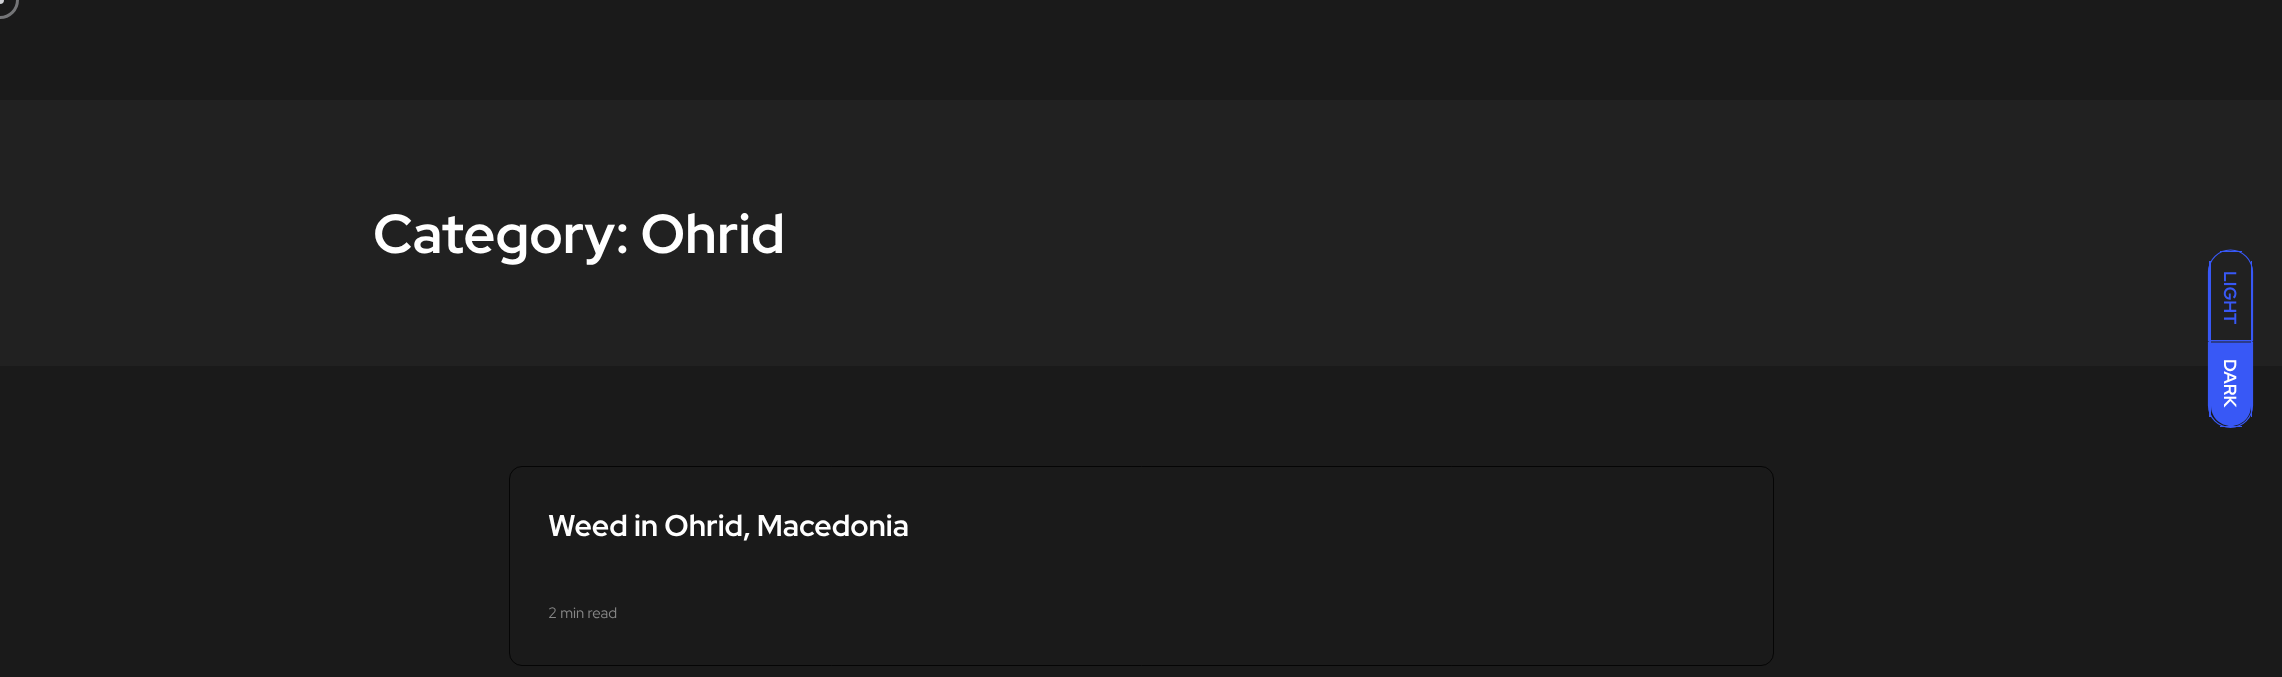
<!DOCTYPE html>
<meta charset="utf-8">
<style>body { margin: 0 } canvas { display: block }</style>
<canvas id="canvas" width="2282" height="677"></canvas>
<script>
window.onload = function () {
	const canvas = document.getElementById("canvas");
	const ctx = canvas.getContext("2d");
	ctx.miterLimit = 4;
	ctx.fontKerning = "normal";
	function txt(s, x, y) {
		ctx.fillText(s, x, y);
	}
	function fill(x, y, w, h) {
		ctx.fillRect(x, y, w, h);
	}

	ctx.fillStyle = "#212121";
	fill(0, 0, 2282, 677);
	ctx.fillStyle = "#1A1A1A";
	fill(0, 0, 2282, 100);
	ctx.beginPath();
	ctx.arc(0, 0, 17.5, 0, Math.PI * 2);
	ctx.strokeStyle = "#747577";
	ctx.lineWidth = 3;
	ctx.stroke();
	ctx.fillStyle = "#CED0D4";
	ctx.beginPath();
	ctx.arc(0, 0, 4, 0, Math.PI * 2);
	ctx.fill();
	ctx.fillStyle = "#1A1A1A";
	fill(0, 366, 2282, 311);
	ctx.beginPath();
	ctx.roundRect(509.5, 466.5, 1264, 199, 12.5);
	ctx.strokeStyle = "#050505";
	ctx.lineWidth = 1;
	ctx.stroke();
	ctx.beginPath();
	ctx.moveTo(2252.5, 272);
	ctx.lineTo(2252.5, 340.5);
	ctx.lineTo(2208.5, 340.5);
	ctx.lineTo(2208.5, 272);
	ctx.bezierCurveTo(2208.5, 259.5, 2218.5, 250, 2230.5, 250);
	ctx.bezierCurveTo(2242.5, 250, 2252.5, 259.5, 2252.5, 272);
	ctx.closePath();
	ctx.strokeStyle = "#3858F6";
	ctx.lineWidth = 1.2;
	ctx.stroke();
	ctx.fillStyle = "#3858F6";
	fill(2251, 261, 1, 80);
	fill(2209, 261, 2, 80);
	fill(2220, 251, 22, 1);
	ctx.beginPath();
	ctx.moveTo(2251, 343);
	ctx.lineTo(2251, 406);
	ctx.bezierCurveTo(2251, 417, 2242, 426, 2231, 426);
	ctx.bezierCurveTo(2220, 426, 2211, 417, 2211, 406);
	ctx.lineTo(2211, 343);
	ctx.closePath();
	ctx.fill();
	ctx.beginPath();
	ctx.moveTo(2252.5, 342);
	ctx.lineTo(2252.5, 405.5);
	ctx.bezierCurveTo(2252.5, 418, 2242.5, 427.5, 2230.5, 427.5);
	ctx.bezierCurveTo(2218.5, 427.5, 2208.5, 418, 2208.5, 405.5);
	ctx.lineTo(2208.5, 342);
	ctx.closePath();
	ctx.stroke();
	fill(2251, 341, 1, 76);
	fill(2220, 426, 22, 1);
	fill(2209, 341, 2, 76);
	ctx.font = "bold 55px Red Hat Display";
	ctx.fillStyle = "#FFFFFF";
	txt("Category: Ohrid", 373, 253);
	ctx.font = "bold 30px Red Hat Display";
	txt("Weed in Ohrid, Macedonia", 548, 536);
	ctx.font = "15px Red Hat Display";
	ctx.fillStyle = "#878787";
	txt("2 min read", 548, 618);
	ctx.font = "bold 17.5px Red Hat Display";
	ctx.fillStyle = "#3858F6";
	ctx.save();
	ctx.translate(2224, 271);
	ctx.rotate(90 * Math.PI / 180);
	ctx.fillText("LIGHT", 0, 0);
	ctx.restore();
	ctx.fillStyle = "#FFFFFF";
	ctx.save();
	ctx.translate(2224, 359);
	ctx.rotate(90 * Math.PI / 180);
	ctx.fillText("DARK", 0, 0);
	ctx.restore();
};
</script>
